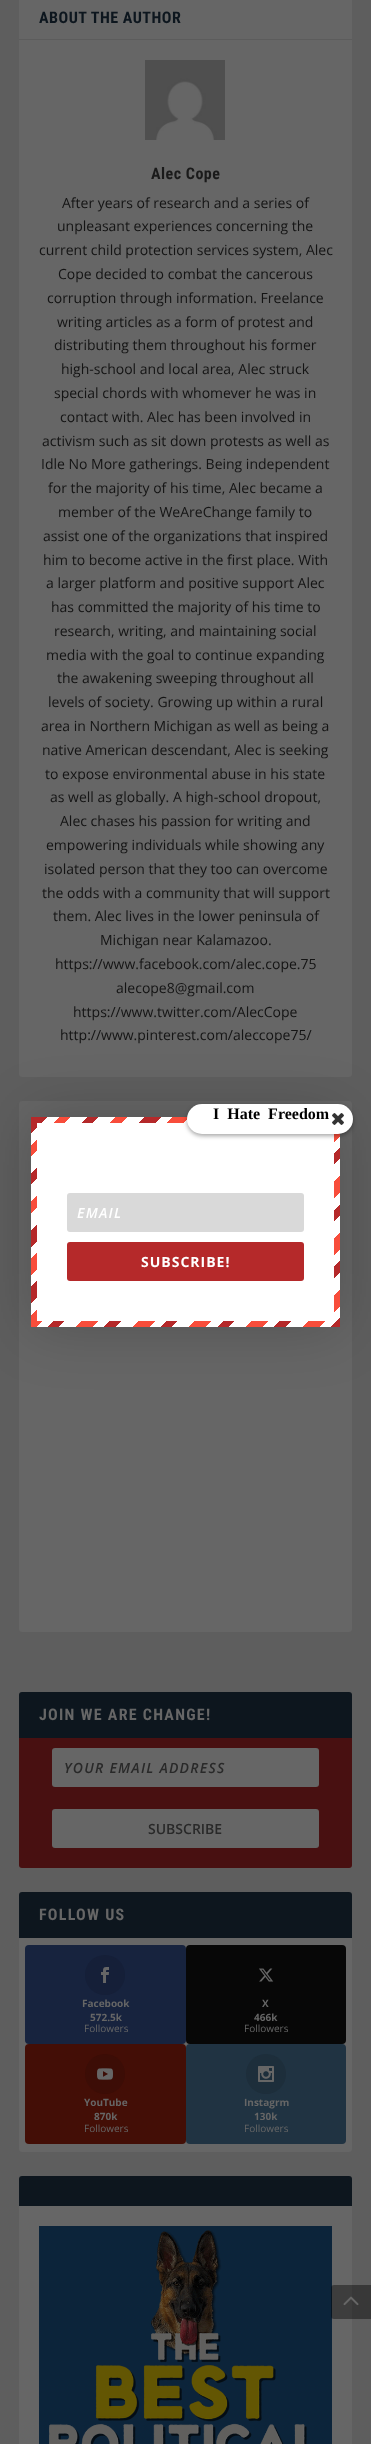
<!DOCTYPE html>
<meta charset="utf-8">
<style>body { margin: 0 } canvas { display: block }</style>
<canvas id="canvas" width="371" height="2444"></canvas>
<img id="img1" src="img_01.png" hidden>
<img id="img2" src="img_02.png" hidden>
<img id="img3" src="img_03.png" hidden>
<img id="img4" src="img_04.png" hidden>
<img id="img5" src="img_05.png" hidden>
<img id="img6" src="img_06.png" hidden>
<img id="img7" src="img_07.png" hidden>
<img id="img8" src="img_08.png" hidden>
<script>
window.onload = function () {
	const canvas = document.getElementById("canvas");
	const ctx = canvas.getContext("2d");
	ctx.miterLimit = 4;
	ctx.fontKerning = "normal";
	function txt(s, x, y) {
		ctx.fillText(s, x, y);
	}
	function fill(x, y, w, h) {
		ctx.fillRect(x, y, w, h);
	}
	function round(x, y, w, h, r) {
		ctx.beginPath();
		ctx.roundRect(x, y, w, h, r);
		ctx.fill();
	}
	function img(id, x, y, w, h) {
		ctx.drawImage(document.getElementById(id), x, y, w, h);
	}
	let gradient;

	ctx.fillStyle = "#5E5E5E";
	fill(0, 0, 371, 2444);
	ctx.fillStyle = "#666666";
	round(19, -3, 333, 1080, 3);
	ctx.fillStyle = "#5C5C5C";
	fill(19, 39, 333, 1);
	img("img1", 145, 60, 80, 80);
	ctx.fillStyle = "#666666";
	round(19, 1101, 333, 531, 3);
	ctx.fillStyle = "#0D161E";
	ctx.beginPath();
	ctx.roundRect(19, 1692, 333, 46, [3, 3, 0, 0]);
	ctx.fill();
	ctx.fillStyle = "#481011";
	ctx.beginPath();
	ctx.roundRect(19, 1738, 333, 130, [0, 0, 3, 3]);
	ctx.fill();
	ctx.fillStyle = "#666666";
	round(52, 1748, 267, 39, 3);
	round(52, 1809, 267, 39, 3);
	round(19, 1892, 333, 260, 3);
	ctx.fillStyle = "#0D161E";
	ctx.beginPath();
	ctx.roundRect(19, 1892, 333, 46, [3, 3, 0, 0]);
	ctx.fill();
	ctx.fillStyle = "#17233E";
	round(25, 1945, 161, 99, 4);
	ctx.fillStyle = "#151F38";
	ctx.beginPath();
	ctx.arc(105, 1975, 20, 0, Math.PI * 2);
	ctx.fill();
	img("img2", 101, 1967, 8, 16);
	ctx.fillStyle = "#070707";
	round(186, 1945, 160, 99, 4);
	img("img3", 259, 1968, 15, 14);
	ctx.fillStyle = "#430E06";
	round(25, 2044, 161, 100, 4);
	ctx.fillStyle = "#3C0D06";
	ctx.beginPath();
	ctx.arc(105, 2074, 20, 0, Math.PI * 2);
	ctx.fill();
	img("img4", 97, 2068, 16, 12);
	ctx.fillStyle = "#203342";
	round(186, 2044, 160, 100, 4);
	ctx.fillStyle = "#1D2E3B";
	ctx.beginPath();
	ctx.arc(266, 2074, 20, 0, Math.PI * 2);
	ctx.fill();
	img("img5", 258, 2066, 16, 16);
	ctx.fillStyle = "#666666";
	round(19, 2176, 333, 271, 3);
	ctx.fillStyle = "#0D161E";
	ctx.beginPath();
	ctx.roundRect(19, 2176, 333, 30, [3, 3, 0, 0]);
	ctx.fill();
	img("img6", 39, 2226, 293, 218);
	ctx.fillStyle = "rgba(0, 0, 0, 0.2)";
	ctx.filter = "blur(30px)";
	ctx.beginPath();
	ctx.rect(31, 1117, 309, 210);
	ctx.fill();
	ctx.filter = "none";
	gradient = ctx.createLinearGradient(56, 1092, 339, 1375);
	gradient.addColorStop(0, "#B5292A");
	gradient.addColorStop(0.03, "#B5292A");
	gradient.addColorStop(0.03, "#FFFFFF");
	gradient.addColorStop(0.05, "#FFFFFF");
	gradient.addColorStop(0.05, "#F84D3B");
	gradient.addColorStop(0.07, "#F84D3B");
	gradient.addColorStop(0.07, "#FFFFFF");
	gradient.addColorStop(0.1, "#FFFFFF");
	gradient.addColorStop(0.1, "#B5292A");
	gradient.addColorStop(0.12, "#B5292A");
	gradient.addColorStop(0.12, "#FFFFFF");
	gradient.addColorStop(0.15, "#FFFFFF");
	gradient.addColorStop(0.15, "#F84D3B");
	gradient.addColorStop(0.17, "#F84D3B");
	gradient.addColorStop(0.17, "#FFFFFF");
	gradient.addColorStop(0.2, "#FFFFFF");
	gradient.addColorStop(0.2, "#B5292A");
	gradient.addColorStop(0.23, "#B5292A");
	gradient.addColorStop(0.23, "#FFFFFF");
	gradient.addColorStop(0.25, "#FFFFFF");
	gradient.addColorStop(0.25, "#F84D3B");
	gradient.addColorStop(0.28, "#F84D3B");
	gradient.addColorStop(0.28, "#FFFFFF");
	gradient.addColorStop(0.3, "#FFFFFF");
	gradient.addColorStop(0.3, "#B5292A");
	gradient.addColorStop(0.33, "#B5292A");
	gradient.addColorStop(0.33, "#FFFFFF");
	gradient.addColorStop(0.35, "#FFFFFF");
	gradient.addColorStop(0.35, "#F84D3B");
	gradient.addColorStop(0.38, "#F84D3B");
	gradient.addColorStop(0.38, "#FFFFFF");
	gradient.addColorStop(0.4, "#FFFFFF");
	gradient.addColorStop(0.4, "#B5292A");
	gradient.addColorStop(0.42, "#B5292A");
	gradient.addColorStop(0.42, "#FFFFFF");
	gradient.addColorStop(0.45, "#FFFFFF");
	gradient.addColorStop(0.45, "#F84D3B");
	gradient.addColorStop(0.48, "#F84D3B");
	gradient.addColorStop(0.48, "#FFFFFF");
	gradient.addColorStop(0.5, "#FFFFFF");
	gradient.addColorStop(0.5, "#B5292A");
	gradient.addColorStop(0.52, "#B5292A");
	gradient.addColorStop(0.52, "#FFFFFF");
	gradient.addColorStop(0.55, "#FFFFFF");
	gradient.addColorStop(0.55, "#F84D3B");
	gradient.addColorStop(0.58, "#F84D3B");
	gradient.addColorStop(0.58, "#FFFFFF");
	gradient.addColorStop(0.6, "#FFFFFF");
	gradient.addColorStop(0.6, "#B5292A");
	gradient.addColorStop(0.62, "#B5292A");
	gradient.addColorStop(0.62, "#FFFFFF");
	gradient.addColorStop(0.65, "#FFFFFF");
	gradient.addColorStop(0.65, "#F84D3B");
	gradient.addColorStop(0.68, "#F84D3B");
	gradient.addColorStop(0.68, "#FFFFFF");
	gradient.addColorStop(0.7, "#FFFFFF");
	gradient.addColorStop(0.7, "#B5292A");
	gradient.addColorStop(0.72, "#B5292A");
	gradient.addColorStop(0.72, "#FFFFFF");
	gradient.addColorStop(0.75, "#FFFFFF");
	gradient.addColorStop(0.75, "#F84D3B");
	gradient.addColorStop(0.78, "#F84D3B");
	gradient.addColorStop(0.78, "#FFFFFF");
	gradient.addColorStop(0.8, "#FFFFFF");
	gradient.addColorStop(0.8, "#B5292A");
	gradient.addColorStop(0.82, "#B5292A");
	gradient.addColorStop(0.82, "#FFFFFF");
	gradient.addColorStop(0.85, "#FFFFFF");
	gradient.addColorStop(0.85, "#F84D3B");
	gradient.addColorStop(0.88, "#F84D3B");
	gradient.addColorStop(0.88, "#FFFFFF");
	gradient.addColorStop(0.9, "#FFFFFF");
	gradient.addColorStop(0.9, "#B5292A");
	gradient.addColorStop(0.92, "#B5292A");
	gradient.addColorStop(0.92, "#FFFFFF");
	gradient.addColorStop(0.95, "#FFFFFF");
	gradient.addColorStop(0.95, "#F84D3B");
	gradient.addColorStop(0.98, "#F84D3B");
	gradient.addColorStop(0.98, "#FFFFFF");
	gradient.addColorStop(1, "#FFFFFF");
	ctx.fillStyle = gradient;
	fill(31, 1117, 309, 210);
	ctx.fillStyle = "#FFFFFF";
	fill(37, 1123, 297, 198);
	ctx.fillStyle = "rgba(0, 0, 0, 0.34)";
	ctx.filter = "blur(2px)";
	ctx.beginPath();
	ctx.roundRect(187, 1106, 166, 30, 15);
	ctx.fill();
	ctx.filter = "none";
	ctx.fillStyle = "#FFFFFF";
	round(187, 1104, 166, 30, 15);
	img("img7", 332, 1113, 12, 12);
	ctx.fillStyle = "#D9D9D9";
	round(67, 1193, 237, 39, 3);
	ctx.fillStyle = "#B5292A";
	round(67, 1242, 237, 39, 3);
	ctx.fillStyle = "rgba(0, 0, 0, 0.4)";
	ctx.beginPath();
	ctx.roundRect(331, 2285, 40, 34, [3, 0, 0, 3]);
	ctx.fill();
	img("img8", 343, 2296, 16, 10);
	ctx.letterSpacing = "0.5px";
	ctx.font = "bold 16px Roboto Condensed";
	ctx.fillStyle = "#0D161E";
	txt("ABOUT THE AUTHOR", 39, 23);
	ctx.fillStyle = "#1A1A1A";
	txt("Alec Cope", 151, 179);
	ctx.letterSpacing = "0px";
	ctx.font = "14px Open Sans";
	ctx.fillStyle = "#141414";
	txt("After years of research and a series of", 62, 208);
	txt("unpleasant experiences concerning the", 57, 231);
	txt("current child protection services system, Alec", 39, 255);
	txt("Cope decided to combat the cancerous", 58, 279);
	txt("corruption through information. Freelance", 47, 303);
	txt("writing articles as a form of protest and", 57, 327);
	txt("distributing them throughout his former", 54, 350);
	txt("high-school and local area, Alec struck", 61, 374);
	txt("special chords with whomever he was in", 54, 398);
	txt("contact with. Alec has been involved in", 60, 422);
	txt("activism such as sit down protests as well as", 42, 446);
	txt("Idle No More gatherings. Being independent", 41, 469);
	txt("for the majority of his time, Alec became a", 48, 493);
	txt("member of the WeAreChange family to", 58, 517);
	txt("assist one of the organizations that inspired", 43, 541);
	txt("him to become active in the first place. With", 43, 565);
	txt("a larger platform and positive support Alec", 46, 588);
	txt("has committed the majority of his time to", 51, 612);
	txt("research, writing, and maintaining social", 54, 636);
	txt("media with the goal to continue expanding", 46, 660);
	txt("the awakening sweeping throughout all", 57, 683);
	txt("levels of society. Growing up within a rural", 48, 707);
	txt("area in Northern Michigan as well as being a", 41, 731);
	txt("native American descendant, Alec is seeking", 42, 755);
	txt("to expose environmental abuse in his state", 45, 779);
	txt("as well as globally. A high-school dropout,", 50, 802);
	txt("Alec chases his passion for writing and", 60, 826);
	txt("empowering individuals while showing any", 46, 850);
	txt("isolated person that they too can overcome", 44, 874);
	txt("the odds with a community that will support", 42, 898);
	txt("them. Alec lives in the lower peninsula of", 53, 921);
	txt("Michigan near Kalamazoo.", 100, 945);
	txt("https://www.facebook.com/alec.cope.75", 55, 969);
	txt("alecope8@gmail.com", 116, 993);
	txt("https://www.twitter.com/AlecCope", 73, 1017);
	txt("http://www.pinterest.com/aleccope75/", 60, 1040);
	ctx.letterSpacing = "1.25px";
	ctx.font = "bold 16px Roboto Condensed";
	ctx.fillStyle = "#666666";
	txt("JOIN WE ARE CHANGE!", 39, 1720);
	ctx.font = "italic 600 14px Open Sans";
	ctx.fillStyle = "#292929";
	txt("YOUR EMAIL ADDRESS", 64, 1773);
	ctx.letterSpacing = "0px";
	ctx.font = "600 14px Open Sans";
	txt("SUBSCRIBE", 148, 1834);
	ctx.letterSpacing = "1.25px";
	ctx.font = "bold 16px Roboto Condensed";
	ctx.fillStyle = "#666666";
	txt("FOLLOW US", 39, 1920);
	ctx.letterSpacing = "0px";
	ctx.font = "bold 10px Open Sans";
	txt("Facebook", 82, 2007);
	txt("572.5k", 90, 2021);
	ctx.font = "10px Open Sans";
	txt("Followers", 84, 2032);
	ctx.font = "bold 10px Open Sans";
	txt("X", 262, 2007);
	txt("466k", 254, 2021);
	ctx.font = "10px Open Sans";
	txt("Followers", 244, 2032);
	ctx.font = "bold 10px Open Sans";
	txt("YouTube", 84, 2106);
	txt("870k", 94, 2120);
	ctx.font = "10px Open Sans";
	txt("Followers", 84, 2132);
	ctx.font = "bold 10px Open Sans";
	txt("Instagrm", 244, 2106);
	txt("130k", 254, 2120);
	ctx.font = "10px Open Sans";
	txt("Followers", 244, 2132);
	ctx.wordSpacing = "4px";
	ctx.font = "bold 16px Liberation Serif";
	ctx.fillStyle = "#000000";
	txt("I Hate Freedom", 213, 1119);
	ctx.letterSpacing = "1.25px";
	ctx.wordSpacing = "0px";
	ctx.font = "italic 600 14px Open Sans";
	ctx.fillStyle = "#FFFFFF";
	txt("EMAIL", 77, 1218);
	ctx.letterSpacing = "1px";
	ctx.font = "bold 14px Open Sans";
	txt("SUBSCRIBE!", 141, 1267);
};
</script>
